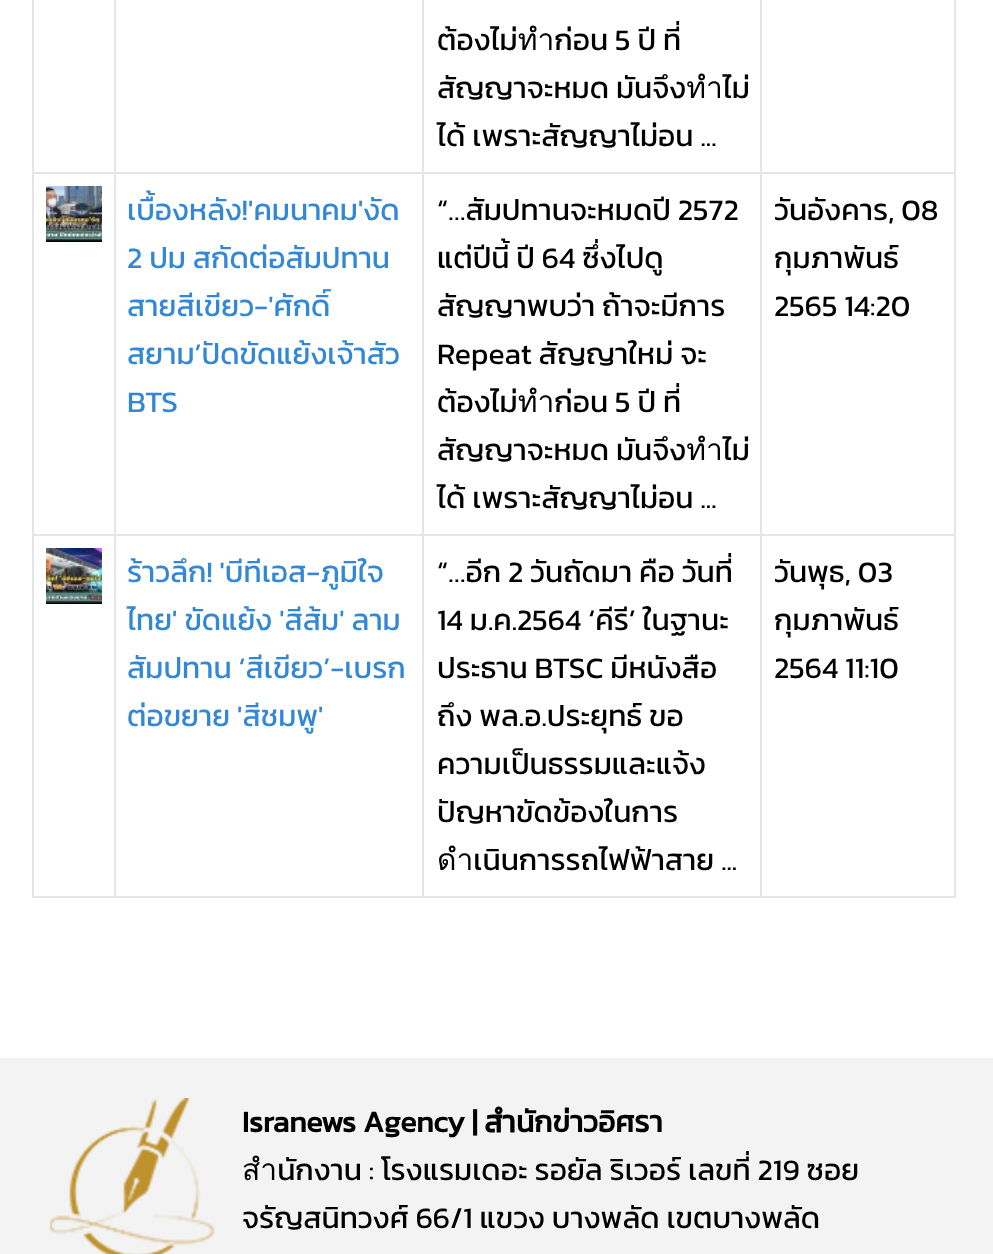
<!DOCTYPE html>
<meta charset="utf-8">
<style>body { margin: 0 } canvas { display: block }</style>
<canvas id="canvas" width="993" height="1254"></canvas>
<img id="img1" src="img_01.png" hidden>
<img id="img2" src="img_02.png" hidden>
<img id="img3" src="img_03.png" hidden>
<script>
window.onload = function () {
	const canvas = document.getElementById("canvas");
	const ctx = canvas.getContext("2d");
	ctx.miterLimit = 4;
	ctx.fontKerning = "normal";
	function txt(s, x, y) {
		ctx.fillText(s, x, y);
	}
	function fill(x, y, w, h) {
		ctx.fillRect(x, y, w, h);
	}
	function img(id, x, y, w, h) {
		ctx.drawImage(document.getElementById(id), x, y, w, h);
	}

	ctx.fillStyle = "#FFFFFF";
	fill(0, 0, 993, 1254);
	ctx.fillStyle = "#E5E5E5";
	fill(954, 0, 2, 898);
	fill(32, 896, 924, 2);
	fill(32, 0, 2, 898);
	fill(760, 534, 2, 364);
	fill(760, 534, 196, 2);
	fill(760, 172, 2, 364);
	fill(760, 172, 196, 2);
	fill(760, 0, 2, 174);
	fill(422, 534, 2, 364);
	fill(422, 534, 340, 2);
	fill(422, 172, 2, 364);
	fill(422, 172, 340, 2);
	fill(422, 0, 2, 174);
	fill(114, 534, 2, 364);
	fill(114, 534, 310, 2);
	fill(114, 172, 2, 364);
	fill(114, 172, 310, 2);
	fill(114, 0, 2, 174);
	fill(32, 172, 84, 2);
	fill(32, 534, 84, 2);
	img("img1", 46, 186, 56, 56);
	img("img2", 46, 548, 56, 56);
	ctx.fillStyle = "#F3F3F3";
	fill(0, 1058, 993, 196);
	img("img3", 50, 1098, 165, 156);
	ctx.font = "30px Kanit";
	ctx.fillStyle = "#000000";
	txt("ต้องไม่ทำก่อน 5 ปี ที่", 437, 50);
	txt("สัญญาจะหมด มันจึงทำไม่", 437, 98);
	txt("ได้ เพราะสัญญาไม่อน ...", 437, 146);
	ctx.fillStyle = "#3287D7";
	txt("เบื้องหลัง!'คมนาคม'งัด", 127, 220);
	txt("2 ปม สกัดต่อสัมปทาน", 127, 268);
	txt("สายสีเขียว-'ศักดิ์", 127, 316);
	txt("สยาม’ปัดขัดแย้งเจ้าสัว", 127, 364);
	txt("BTS", 127, 412);
	ctx.fillStyle = "#000000";
	txt("“…สัมปทานจะหมดปี 2572", 437, 220);
	txt("แต่ปีนี้ ปี 64 ซึ่งไปดู", 437, 268);
	txt("สัญญาพบว่า ถ้าจะมีการ", 437, 316);
	txt("Repeat สัญญาใหม่ จะ", 437, 364);
	txt("ต้องไม่ทำก่อน 5 ปี ที่", 437, 412);
	txt("สัญญาจะหมด มันจึงทำไม่", 437, 460);
	txt("ได้ เพราะสัญญาไม่อน ...", 437, 508);
	txt("วันอังคาร, 08", 774, 220);
	txt("กุมภาพันธ์", 774, 268);
	txt("2565 14:20", 774, 316);
	ctx.fillStyle = "#3287D7";
	txt("ร้าวลึก! 'บีทีเอส-ภูมิใจ", 127, 582);
	txt("ไทย' ขัดแย้ง 'สีส้ม' ลาม", 127, 630);
	txt("สัมปทาน ‘สีเขียว’-เบรก", 127, 678);
	txt("ต่อขยาย 'สีชมพู'", 127, 726);
	ctx.fillStyle = "#000000";
	txt("“…อีก 2 วันถัดมา คือ วันที่", 437, 582);
	txt("14 ม.ค.2564 ‘คีรี’ ในฐานะ", 437, 630);
	txt("ประธาน BTSC มีหนังสือ", 437, 678);
	txt("ถึง พล.อ.ประยุทธ์ ขอ", 437, 726);
	txt("ความเป็นธรรมและแจ้ง", 437, 774);
	txt("ปัญหาขัดข้องในการ", 437, 822);
	txt("ดำเนินการรถไฟฟ้าสาย ...", 437, 870);
	txt("วันพุธ, 03", 774, 582);
	txt("กุมภาพันธ์", 774, 630);
	txt("2564 11:10", 774, 678);
	ctx.font = "bold 30px Kanit";
	txt("Isranews Agency | สำนักข่าวอิศรา", 242, 1132);
	ctx.font = "30px Kanit";
	txt("สำนักงาน : โรงแรมเดอะ รอยัล ริเวอร์ เลขที่ 219 ซอย", 242, 1180);
	txt("จรัญสนิทวงศ์ 66/1 แขวง บางพลัด เขตบางพลัด", 242, 1228);
};
</script>
